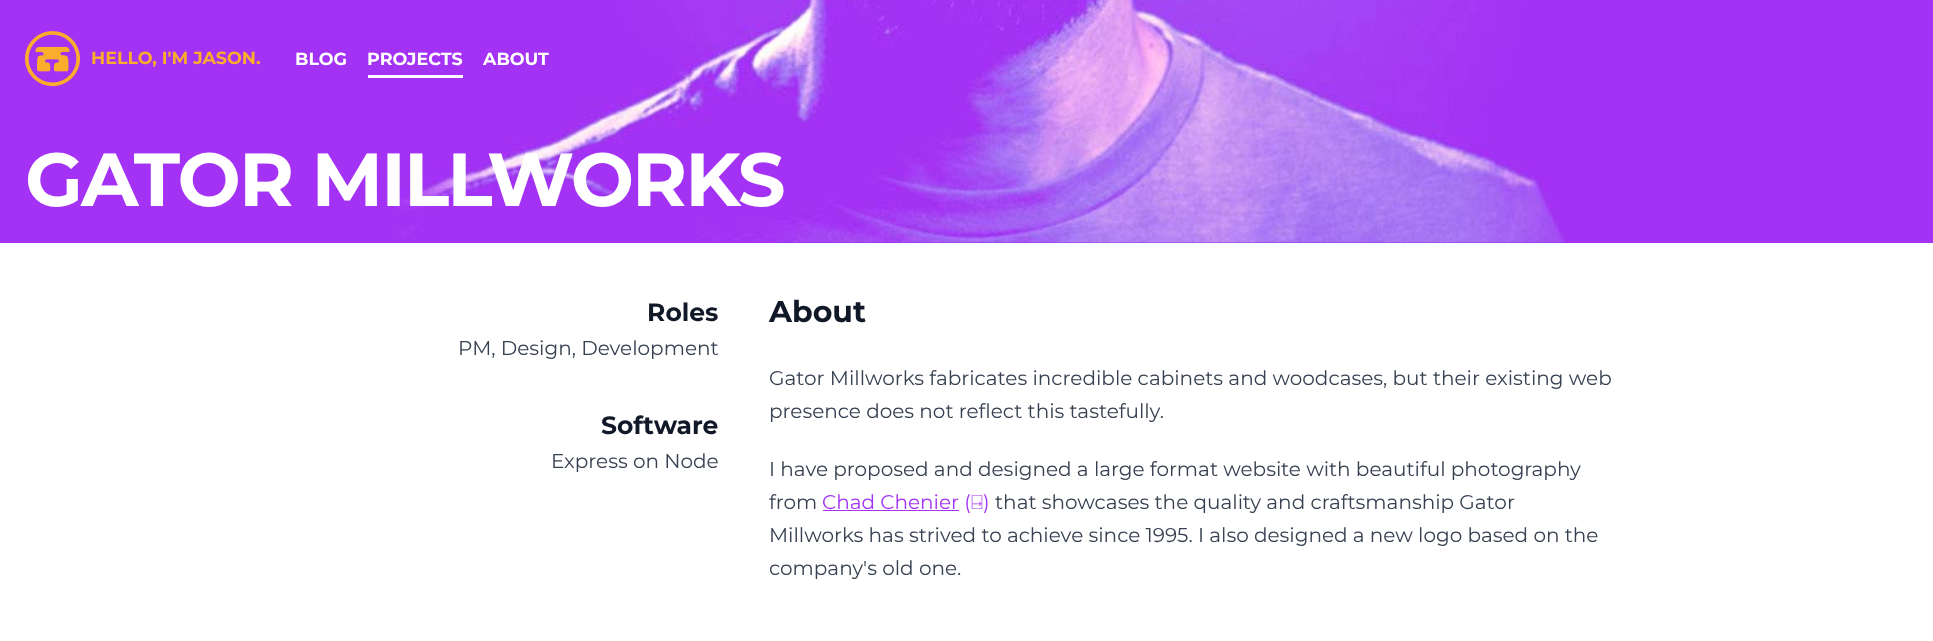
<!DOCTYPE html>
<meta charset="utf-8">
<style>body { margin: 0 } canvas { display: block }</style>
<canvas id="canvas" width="1933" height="641"></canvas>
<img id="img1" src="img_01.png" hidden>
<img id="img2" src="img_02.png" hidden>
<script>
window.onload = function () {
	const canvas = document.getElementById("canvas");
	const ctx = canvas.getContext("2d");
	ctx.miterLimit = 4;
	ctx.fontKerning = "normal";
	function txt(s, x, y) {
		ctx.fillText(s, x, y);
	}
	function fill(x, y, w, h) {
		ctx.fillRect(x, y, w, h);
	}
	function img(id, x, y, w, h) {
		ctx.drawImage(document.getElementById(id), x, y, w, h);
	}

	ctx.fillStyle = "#A432F4";
	fill(0, 0, 1933, 641);
	img("img1", 396, 0, 1170, 243);
	img("img2", 25, 31, 55, 56);
	ctx.fillStyle = "#FFFFFF";
	fill(368, 75, 95, 3);
	fill(0, 243, 1933, 398);
	ctx.fillStyle = "#A432F4";
	fill(823, 510, 136, 1);
	ctx.font = "bold 17.5px Montserrat";
	ctx.fillStyle = "#FAAC2C";
	txt("HELLO, I'M JASON.", 91, 64);
	ctx.fillStyle = "#FFFFFF";
	txt("BLOG", 295, 65);
	txt("PROJECTS", 367, 65);
	txt("ABOUT", 483, 65);
	ctx.letterSpacing = "-1.9px";
	ctx.font = "bold 75px Montserrat";
	txt("GATOR MILLWORKS", 25, 206);
	ctx.letterSpacing = "0px";
	ctx.font = "bold 25px Montserrat";
	ctx.fillStyle = "#111827";
	txt("Roles", 647, 321);
	ctx.font = "20px Montserrat";
	ctx.fillStyle = "#374151";
	txt("PM, Design, Development", 458, 355);
	ctx.font = "bold 25px Montserrat";
	ctx.fillStyle = "#111827";
	txt("Software", 601, 434);
	ctx.font = "20px Montserrat";
	ctx.fillStyle = "#374151";
	txt("Express on Node", 551, 468);
	ctx.font = "bold 30px Montserrat";
	ctx.fillStyle = "#111827";
	txt("About", 769, 322);
	ctx.font = "20px Montserrat";
	ctx.fillStyle = "#374151";
	txt("Gator Millworks fabricates incredible cabinets and woodcases, but their existing web", 769, 385);
	txt("presence does not reflect this tastefully.", 769, 418);
	txt("I have proposed and designed a large format website with beautiful photography", 769, 476);
	txt("from", 769, 509);
	ctx.fillStyle = "#A432F4";
	txt("Chad Chenier (", 822, 509);
	ctx.font = "20px FreeSerif";
	txt("⍈", 971, 509);
	ctx.font = "20px Montserrat";
	txt(")", 983, 509);
	ctx.fillStyle = "#374151";
	txt("that showcases the quality and craftsmanship Gator", 995, 509);
	txt("Millworks has strived to achieve since 1995. I also designed a new logo based on the", 769, 542);
	txt("company's old one.", 769, 575);
};
</script>
